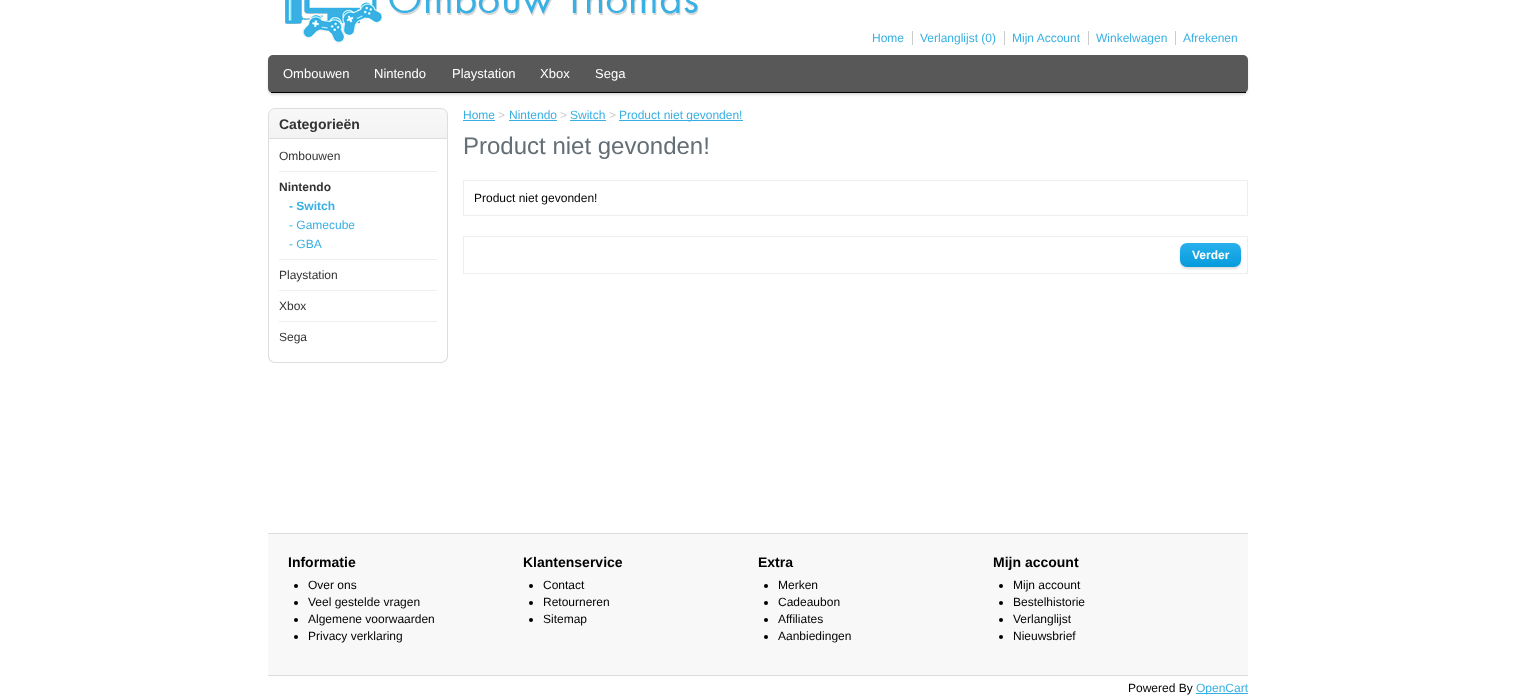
<!DOCTYPE html>
<meta charset="utf-8">
<style>body { margin: 0 } canvas { display: block }</style>
<canvas id="canvas" width="1516" height="698"></canvas>
<img id="img1" src="img_01.png" hidden>
<img id="img2" src="img_02.png" hidden>
<img id="img3" src="img_03.png" hidden>
<script>
window.onload = function () {
	const canvas = document.getElementById("canvas");
	const ctx = canvas.getContext("2d");
	ctx.miterLimit = 4;
	ctx.fontKerning = "normal";
	function txt(s, x, y) {
		ctx.fillText(s, x, y);
	}
	function fill(x, y, w, h) {
		ctx.fillRect(x, y, w, h);
	}
	function round(x, y, w, h, r) {
		ctx.beginPath();
		ctx.roundRect(x, y, w, h, r);
		ctx.fill();
	}
	function img(id, x, y, w, h) {
		ctx.drawImage(document.getElementById(id), x, y, w, h);
	}

	ctx.fillStyle = "#FFFFFF";
	fill(0, 0, 1516, 698);
	img("img1", 285, 0, 414, 43);
	ctx.fillStyle = "#CCCCCC";
	fill(912, 31, 1, 14);
	fill(1004, 31, 1, 14);
	fill(1088, 31, 1, 14);
	fill(1175, 31, 1, 14);
	ctx.fillStyle = "#DDDDDD";
	ctx.filter = "blur(1px)";
	ctx.beginPath();
	ctx.roundRect(268, 57, 980, 38, 5);
	ctx.fill();
	ctx.filter = "none";
	ctx.fillStyle = "#585858";
	round(268, 55, 980, 38, 5);
	ctx.fillStyle = "#000000";
	fill(271, 92, 975, 1);
	img("img2", 268, 109, 180, 29);
	ctx.beginPath();
	ctx.roundRect(268.5, 108.5, 179, 30, [6.5, 6.5, 0, 0]);
	ctx.strokeStyle = "#DBDEE1";
	ctx.stroke();
	ctx.fillStyle = "#DBDEE1";
	ctx.beginPath();
	ctx.moveTo(268, 139);
	ctx.lineTo(448, 139);
	ctx.lineTo(448, 356);
	ctx.bezierCurveTo(448, 360, 445, 363, 441, 363);
	ctx.lineTo(275, 363);
	ctx.bezierCurveTo(271, 363, 268, 360, 268, 356);
	ctx.closePath();
	ctx.moveTo(269, 139);
	ctx.lineTo(447, 139);
	ctx.lineTo(447, 356);
	ctx.bezierCurveTo(447, 359, 444, 362, 441, 362);
	ctx.lineTo(275, 362);
	ctx.bezierCurveTo(272, 362, 269, 359, 269, 356);
	ctx.closePath();
	ctx.fill("evenodd");
	ctx.fillStyle = "#EEEEEE";
	fill(279, 171, 158, 1);
	fill(279, 259, 158, 1);
	fill(279, 290, 158, 1);
	fill(279, 321, 158, 1);
	ctx.fillStyle = "#38B0E3";
	fill(463, 120, 32, 1);
	fill(509, 120, 48, 1);
	fill(570, 120, 36, 1);
	fill(619, 120, 124, 1);
	ctx.strokeStyle = "#EEEEEE";
	ctx.strokeRect(463.5, 180.5, 784, 35);
	ctx.strokeRect(463.5, 236.5, 784, 37);
	ctx.fillStyle = "#DDDDDD";
	ctx.filter = "blur(1px)";
	ctx.beginPath();
	ctx.roundRect(1180, 245, 61, 24, 7);
	ctx.fill();
	ctx.filter = "none";
	img("img3", 1180, 243, 61, 24);
	ctx.fillStyle = "#F8F8F8";
	fill(268, 534, 980, 141);
	ctx.fillStyle = "#DBDEE1";
	fill(268, 533, 980, 1);
	fill(268, 675, 980, 1);
	ctx.fillStyle = "#000000";
	ctx.beginPath();
	ctx.arc(296, 586, 2, 0, Math.PI * 2);
	ctx.fill();
	ctx.beginPath();
	ctx.arc(296, 603, 2, 0, Math.PI * 2);
	ctx.fill();
	ctx.beginPath();
	ctx.arc(296, 620, 2, 0, Math.PI * 2);
	ctx.fill();
	ctx.beginPath();
	ctx.arc(296, 637, 2, 0, Math.PI * 2);
	ctx.fill();
	ctx.beginPath();
	ctx.arc(531, 586, 2, 0, Math.PI * 2);
	ctx.fill();
	ctx.beginPath();
	ctx.arc(531, 603, 2, 0, Math.PI * 2);
	ctx.fill();
	ctx.beginPath();
	ctx.arc(531, 620, 2, 0, Math.PI * 2);
	ctx.fill();
	ctx.beginPath();
	ctx.arc(766, 586, 2, 0, Math.PI * 2);
	ctx.fill();
	ctx.beginPath();
	ctx.arc(766, 603, 2, 0, Math.PI * 2);
	ctx.fill();
	ctx.beginPath();
	ctx.arc(766, 620, 2, 0, Math.PI * 2);
	ctx.fill();
	ctx.beginPath();
	ctx.arc(766, 637, 2, 0, Math.PI * 2);
	ctx.fill();
	ctx.beginPath();
	ctx.arc(1001, 586, 2, 0, Math.PI * 2);
	ctx.fill();
	ctx.beginPath();
	ctx.arc(1001, 603, 2, 0, Math.PI * 2);
	ctx.fill();
	ctx.beginPath();
	ctx.arc(1001, 620, 2, 0, Math.PI * 2);
	ctx.fill();
	ctx.beginPath();
	ctx.arc(1001, 637, 2, 0, Math.PI * 2);
	ctx.fill();
	ctx.fillStyle = "#38B0E3";
	fill(1196, 693, 52, 1);
	ctx.font = "12px Liberation Sans";
	txt("Home", 872, 42);
	txt("Verlanglijst (0)", 920, 42);
	txt("Mijn Account", 1012, 42);
	txt("Winkelwagen", 1096, 42);
	txt("Afrekenen", 1183, 42);
	ctx.font = "13px Liberation Sans";
	ctx.fillStyle = "#FFFFFF";
	txt("Ombouwen", 283, 78);
	txt("Nintendo", 374, 78);
	txt("Playstation", 452, 78);
	txt("Xbox", 540, 78);
	txt("Sega", 595, 78);
	ctx.font = "bold 14px Liberation Sans";
	ctx.fillStyle = "#333333";
	txt("Categorieën", 279, 129);
	ctx.font = "12px Liberation Sans";
	txt("Ombouwen", 279, 160);
	ctx.font = "bold 12px Liberation Sans";
	txt("Nintendo", 279, 191);
	ctx.fillStyle = "#38B0E3";
	txt("- Switch", 289, 210);
	ctx.font = "12px Liberation Sans";
	txt("- Gamecube", 289, 229);
	txt("- GBA", 289, 248);
	ctx.fillStyle = "#333333";
	txt("Playstation", 279, 279);
	txt("Xbox", 279, 310);
	txt("Sega", 279, 341);
	ctx.fillStyle = "#38B0E3";
	txt("Home", 463, 119);
	ctx.fillStyle = "#CCCCCC";
	txt(">", 498, 119);
	ctx.fillStyle = "#38B0E3";
	txt("Nintendo", 509, 119);
	ctx.fillStyle = "#CCCCCC";
	txt(">", 560, 119);
	ctx.fillStyle = "#38B0E3";
	txt("Switch", 570, 119);
	ctx.fillStyle = "#CCCCCC";
	txt(">", 609, 119);
	ctx.fillStyle = "#38B0E3";
	txt("Product niet gevonden!", 619, 119);
	ctx.font = "24px Liberation Sans";
	ctx.fillStyle = "#636E75";
	txt("Product niet gevonden!", 463, 154);
	ctx.font = "12px Liberation Sans";
	ctx.fillStyle = "#000000";
	txt("Product niet gevonden!", 474, 202);
	ctx.font = "bold 12px Liberation Sans";
	ctx.fillStyle = "#FFFFFF";
	txt("Verder", 1192, 259);
	ctx.font = "bold 14px Liberation Sans";
	ctx.fillStyle = "#000000";
	txt("Informatie", 288, 567);
	ctx.font = "12px Liberation Sans";
	txt("Over ons", 308, 589);
	txt("Veel gestelde vragen", 308, 606);
	txt("Algemene voorwaarden", 308, 623);
	txt("Privacy verklaring", 308, 640);
	ctx.font = "bold 14px Liberation Sans";
	txt("Klantenservice", 523, 567);
	ctx.font = "12px Liberation Sans";
	txt("Contact", 543, 589);
	txt("Retourneren", 543, 606);
	txt("Sitemap", 543, 623);
	ctx.font = "bold 14px Liberation Sans";
	txt("Extra", 758, 567);
	ctx.font = "12px Liberation Sans";
	txt("Merken", 778, 589);
	txt("Cadeaubon", 778, 606);
	txt("Affiliates", 778, 623);
	txt("Aanbiedingen", 778, 640);
	ctx.font = "bold 14px Liberation Sans";
	txt("Mijn account", 993, 567);
	ctx.font = "12px Liberation Sans";
	txt("Mijn account", 1013, 589);
	txt("Bestelhistorie", 1013, 606);
	txt("Verlanglijst", 1013, 623);
	txt("Nieuwsbrief", 1013, 640);
	txt("Powered By", 1128, 692);
	ctx.fillStyle = "#38B0E3";
	txt("OpenCart", 1196, 692);
};
</script>
